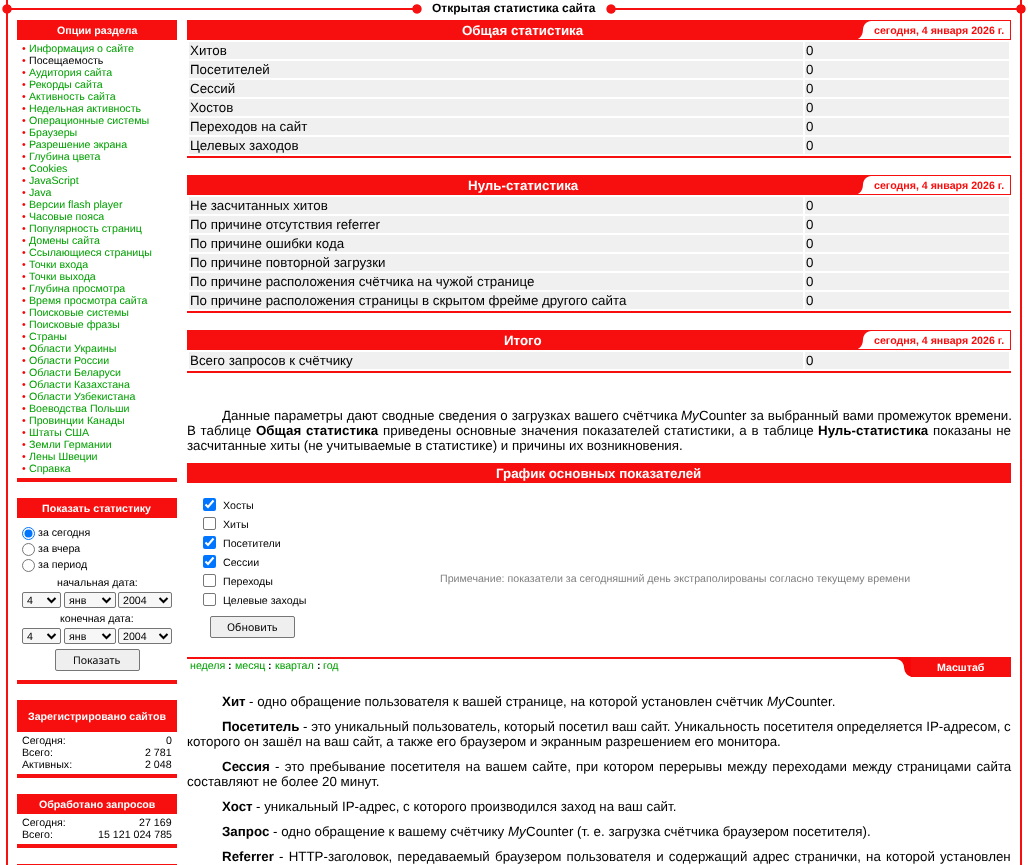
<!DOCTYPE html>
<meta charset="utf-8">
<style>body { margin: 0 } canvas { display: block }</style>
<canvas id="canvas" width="1028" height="865"></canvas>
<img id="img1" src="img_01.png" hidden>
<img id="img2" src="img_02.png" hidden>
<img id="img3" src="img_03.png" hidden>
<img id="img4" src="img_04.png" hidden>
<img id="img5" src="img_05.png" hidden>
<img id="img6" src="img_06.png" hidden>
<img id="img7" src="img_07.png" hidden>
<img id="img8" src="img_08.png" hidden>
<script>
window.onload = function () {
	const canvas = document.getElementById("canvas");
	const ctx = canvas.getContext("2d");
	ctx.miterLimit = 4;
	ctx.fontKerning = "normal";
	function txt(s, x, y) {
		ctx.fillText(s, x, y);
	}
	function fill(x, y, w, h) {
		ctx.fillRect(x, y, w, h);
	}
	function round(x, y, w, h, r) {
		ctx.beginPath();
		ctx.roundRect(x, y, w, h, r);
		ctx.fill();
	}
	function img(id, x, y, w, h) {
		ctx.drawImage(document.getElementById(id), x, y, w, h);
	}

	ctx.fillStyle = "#FFFFFF";
	fill(0, 0, 1028, 865);
	ctx.fillStyle = "#F71010";
	fill(6, 0, 2, 865);
	fill(1020, 0, 2, 865);
	img("img1", 2, 4, 10, 10);
	fill(12, 8, 400, 2);
	img("img2", 412, 4, 10, 10);
	img("img3", 606, 4, 10, 10);
	fill(616, 8, 400, 2);
	img("img4", 1016, 4, 10, 10);
	ctx.fillStyle = "#F70F0F";
	fill(17, 20, 160, 20);
	ctx.fillStyle = "#F71010";
	fill(17, 478, 160, 4);
	ctx.fillStyle = "#F70F0F";
	fill(17, 498, 160, 20);
	ctx.beginPath();
	ctx.arc(28.5, 533.5, 6, 0, Math.PI * 2);
	ctx.strokeStyle = "#0075FF";
	ctx.stroke();
	ctx.fillStyle = "#0075FF";
	ctx.beginPath();
	ctx.arc(28.5, 533.5, 4, 0, Math.PI * 2);
	ctx.fill();
	ctx.beginPath();
	ctx.arc(28.5, 549.5, 6, 0, Math.PI * 2);
	ctx.strokeStyle = "#767676";
	ctx.stroke();
	ctx.beginPath();
	ctx.arc(28.5, 565.5, 6, 0, Math.PI * 2);
	ctx.stroke();
	ctx.fillStyle = "#F7F7F7";
	ctx.beginPath();
	ctx.roundRect(22.5, 592.5, 38, 15, 1.5);
	ctx.fill();
	ctx.stroke();
	ctx.beginPath();
	ctx.moveTo(47.5, 598);
	ctx.lineTo(51.5, 602);
	ctx.lineTo(55.5, 598);
	ctx.strokeStyle = "#000000";
	ctx.lineWidth = 2;
	ctx.stroke();
	ctx.beginPath();
	ctx.roundRect(64.5, 592.5, 51, 15, 1.5);
	ctx.fill();
	ctx.strokeStyle = "#767676";
	ctx.lineWidth = 1;
	ctx.stroke();
	ctx.beginPath();
	ctx.moveTo(102.5, 598);
	ctx.lineTo(106.5, 602);
	ctx.lineTo(110.5, 598);
	ctx.strokeStyle = "#000000";
	ctx.lineWidth = 2;
	ctx.stroke();
	ctx.beginPath();
	ctx.roundRect(118.5, 592.5, 53, 15, 1.5);
	ctx.fill();
	ctx.strokeStyle = "#767676";
	ctx.lineWidth = 1;
	ctx.stroke();
	ctx.beginPath();
	ctx.moveTo(159.5, 598);
	ctx.lineTo(163.5, 602);
	ctx.lineTo(167.5, 598);
	ctx.strokeStyle = "#000000";
	ctx.lineWidth = 2;
	ctx.stroke();
	ctx.beginPath();
	ctx.roundRect(22.5, 628.5, 38, 15, 1.5);
	ctx.fill();
	ctx.strokeStyle = "#767676";
	ctx.lineWidth = 1;
	ctx.stroke();
	ctx.beginPath();
	ctx.moveTo(47.5, 634);
	ctx.lineTo(51.5, 638);
	ctx.lineTo(55.5, 634);
	ctx.strokeStyle = "#000000";
	ctx.lineWidth = 2;
	ctx.stroke();
	ctx.beginPath();
	ctx.roundRect(64.5, 628.5, 51, 15, 1.5);
	ctx.fill();
	ctx.strokeStyle = "#767676";
	ctx.lineWidth = 1;
	ctx.stroke();
	ctx.beginPath();
	ctx.moveTo(102.5, 634);
	ctx.lineTo(106.5, 638);
	ctx.lineTo(110.5, 634);
	ctx.strokeStyle = "#000000";
	ctx.lineWidth = 2;
	ctx.stroke();
	ctx.beginPath();
	ctx.roundRect(118.5, 628.5, 53, 15, 1.5);
	ctx.fill();
	ctx.strokeStyle = "#767676";
	ctx.lineWidth = 1;
	ctx.stroke();
	ctx.beginPath();
	ctx.moveTo(159.5, 634);
	ctx.lineTo(163.5, 638);
	ctx.lineTo(167.5, 634);
	ctx.strokeStyle = "#000000";
	ctx.lineWidth = 2;
	ctx.stroke();
	ctx.fillStyle = "#EFEFEF";
	ctx.beginPath();
	ctx.roundRect(55.5, 649.5, 84, 21, 1.5);
	ctx.fill();
	ctx.strokeStyle = "#767676";
	ctx.lineWidth = 1;
	ctx.stroke();
	ctx.fillStyle = "#F71010";
	fill(17, 680, 160, 4);
	ctx.fillStyle = "#F70F0F";
	fill(17, 700, 160, 32);
	ctx.fillStyle = "#F71010";
	fill(17, 774, 160, 4);
	ctx.fillStyle = "#F70F0F";
	fill(17, 794, 160, 20);
	ctx.fillStyle = "#F71010";
	fill(17, 844, 160, 4);
	ctx.fillStyle = "#F70F0F";
	fill(17, 864, 160, 1);
	ctx.strokeStyle = "#F70F0F";
	ctx.strokeRect(187.5, 20.5, 823, 19);
	fill(188, 21, 670, 18);
	fill(858, 21, 5, 9);
	img("img5", 863, 21, 8, 8);
	img("img6", 858, 30, 5, 9);
	ctx.fillStyle = "#F0F0F0";
	fill(189, 42, 614, 17);
	fill(805, 42, 204, 17);
	fill(189, 61, 614, 17);
	fill(805, 61, 204, 17);
	fill(189, 80, 614, 17);
	fill(805, 80, 204, 17);
	fill(189, 99, 614, 17);
	fill(805, 99, 204, 17);
	fill(189, 118, 614, 17);
	fill(805, 118, 204, 17);
	fill(189, 137, 614, 17);
	fill(805, 137, 204, 17);
	ctx.fillStyle = "#F70F0F";
	fill(187, 156, 824, 2);
	ctx.strokeRect(187.5, 175.5, 823, 19);
	fill(188, 176, 670, 18);
	fill(858, 176, 5, 9);
	img("img5", 863, 176, 8, 8);
	img("img6", 858, 185, 5, 9);
	ctx.fillStyle = "#F0F0F0";
	fill(189, 197, 614, 17);
	fill(805, 197, 204, 17);
	fill(189, 216, 614, 17);
	fill(805, 216, 204, 17);
	fill(189, 235, 614, 17);
	fill(805, 235, 204, 17);
	fill(189, 254, 614, 17);
	fill(805, 254, 204, 17);
	fill(189, 273, 614, 17);
	fill(805, 273, 204, 17);
	fill(189, 292, 614, 17);
	fill(805, 292, 204, 17);
	ctx.fillStyle = "#F70F0F";
	fill(187, 311, 824, 2);
	ctx.strokeRect(187.5, 330.5, 823, 19);
	fill(188, 331, 670, 18);
	fill(858, 331, 5, 9);
	img("img5", 863, 331, 8, 8);
	img("img6", 858, 340, 5, 9);
	ctx.fillStyle = "#F0F0F0";
	fill(189, 352, 614, 17);
	fill(805, 352, 204, 17);
	ctx.fillStyle = "#F70F0F";
	fill(187, 371, 824, 2);
	fill(187, 463, 824, 20);
	ctx.fillStyle = "#0075FF";
	round(203, 498, 13, 13, 2);
	ctx.beginPath();
	ctx.moveTo(205.5, 504.5);
	ctx.lineTo(208, 507);
	ctx.lineTo(213.5, 500.5);
	ctx.strokeStyle = "#FFFFFF";
	ctx.lineWidth = 2.1;
	ctx.stroke();
	ctx.beginPath();
	ctx.roundRect(203.5, 517.5, 12, 12, 1.5);
	ctx.strokeStyle = "#767676";
	ctx.lineWidth = 1;
	ctx.stroke();
	round(203, 536, 13, 13, 2);
	ctx.beginPath();
	ctx.moveTo(205.5, 542.5);
	ctx.lineTo(208, 545);
	ctx.lineTo(213.5, 538.5);
	ctx.strokeStyle = "#FFFFFF";
	ctx.lineWidth = 2.1;
	ctx.stroke();
	round(203, 555, 13, 13, 2);
	ctx.beginPath();
	ctx.moveTo(205.5, 561.5);
	ctx.lineTo(208, 564);
	ctx.lineTo(213.5, 557.5);
	ctx.stroke();
	ctx.beginPath();
	ctx.roundRect(203.5, 574.5, 12, 12, 1.5);
	ctx.strokeStyle = "#767676";
	ctx.lineWidth = 1;
	ctx.stroke();
	ctx.beginPath();
	ctx.roundRect(203.5, 593.5, 12, 12, 1.5);
	ctx.stroke();
	ctx.fillStyle = "#EFEFEF";
	ctx.beginPath();
	ctx.roundRect(210.5, 616.5, 84, 21, 1.5);
	ctx.fill();
	ctx.stroke();
	ctx.fillStyle = "#F70F0F";
	fill(187, 657, 708, 2);
	ctx.fillStyle = "#F70808";
	fill(904, 657, 7, 11);
	img("img7", 895, 657, 9, 10);
	ctx.fillStyle = "#F70F0F";
	fill(911, 657, 100, 20);
	img("img8", 904, 668, 7, 9);
	ctx.font = "bold 12px Liberation Sans";
	ctx.fillStyle = "#000000";
	txt("Открытая статистика сайта", 432, 12);
	ctx.font = "bold 10.65px Liberation Sans";
	ctx.fillStyle = "#FFFFFF";
	txt("Опции раздела", 57, 34);
	ctx.font = "10.65px Liberation Sans";
	ctx.fillStyle = "#FF0000";
	txt("•", 22, 52);
	ctx.fillStyle = "#00A000";
	txt("Информация о сайте", 29, 52);
	ctx.fillStyle = "#FF0000";
	txt("•", 22, 64);
	ctx.fillStyle = "#000000";
	txt("Посещаемость", 29, 64);
	ctx.fillStyle = "#FF0000";
	txt("•", 22, 76);
	ctx.fillStyle = "#00A000";
	txt("Аудитория сайта", 29, 76);
	ctx.fillStyle = "#FF0000";
	txt("•", 22, 88);
	ctx.fillStyle = "#00A000";
	txt("Рекорды сайта", 29, 88);
	ctx.fillStyle = "#FF0000";
	txt("•", 22, 100);
	ctx.fillStyle = "#00A000";
	txt("Активность сайта", 29, 100);
	ctx.fillStyle = "#FF0000";
	txt("•", 22, 112);
	ctx.fillStyle = "#00A000";
	txt("Недельная активность", 29, 112);
	ctx.fillStyle = "#FF0000";
	txt("•", 22, 124);
	ctx.fillStyle = "#00A000";
	txt("Операционные системы", 29, 124);
	ctx.fillStyle = "#FF0000";
	txt("•", 22, 136);
	ctx.fillStyle = "#00A000";
	txt("Браузеры", 29, 136);
	ctx.fillStyle = "#FF0000";
	txt("•", 22, 148);
	ctx.fillStyle = "#00A000";
	txt("Разрешение экрана", 29, 148);
	ctx.fillStyle = "#FF0000";
	txt("•", 22, 160);
	ctx.fillStyle = "#00A000";
	txt("Глубина цвета", 29, 160);
	ctx.fillStyle = "#FF0000";
	txt("•", 22, 172);
	ctx.fillStyle = "#00A000";
	txt("Cookies", 29, 172);
	ctx.fillStyle = "#FF0000";
	txt("•", 22, 184);
	ctx.fillStyle = "#00A000";
	txt("JavaScript", 29, 184);
	ctx.fillStyle = "#FF0000";
	txt("•", 22, 196);
	ctx.fillStyle = "#00A000";
	txt("Java", 29, 196);
	ctx.fillStyle = "#FF0000";
	txt("•", 22, 208);
	ctx.fillStyle = "#00A000";
	txt("Версии flash player", 29, 208);
	ctx.fillStyle = "#FF0000";
	txt("•", 22, 220);
	ctx.fillStyle = "#00A000";
	txt("Часовые пояса", 29, 220);
	ctx.fillStyle = "#FF0000";
	txt("•", 22, 232);
	ctx.fillStyle = "#00A000";
	txt("Популярность страниц", 29, 232);
	ctx.fillStyle = "#FF0000";
	txt("•", 22, 244);
	ctx.fillStyle = "#00A000";
	txt("Домены сайта", 29, 244);
	ctx.fillStyle = "#FF0000";
	txt("•", 22, 256);
	ctx.fillStyle = "#00A000";
	txt("Ссылающиеся страницы", 29, 256);
	ctx.fillStyle = "#FF0000";
	txt("•", 22, 268);
	ctx.fillStyle = "#00A000";
	txt("Точки входа", 29, 268);
	ctx.fillStyle = "#FF0000";
	txt("•", 22, 280);
	ctx.fillStyle = "#00A000";
	txt("Точки выхода", 29, 280);
	ctx.fillStyle = "#FF0000";
	txt("•", 22, 292);
	ctx.fillStyle = "#00A000";
	txt("Глубина просмотра", 29, 292);
	ctx.fillStyle = "#FF0000";
	txt("•", 22, 304);
	ctx.fillStyle = "#00A000";
	txt("Время просмотра сайта", 29, 304);
	ctx.fillStyle = "#FF0000";
	txt("•", 22, 316);
	ctx.fillStyle = "#00A000";
	txt("Поисковые системы", 29, 316);
	ctx.fillStyle = "#FF0000";
	txt("•", 22, 328);
	ctx.fillStyle = "#00A000";
	txt("Поисковые фразы", 29, 328);
	ctx.fillStyle = "#FF0000";
	txt("•", 22, 340);
	ctx.fillStyle = "#00A000";
	txt("Страны", 29, 340);
	ctx.fillStyle = "#FF0000";
	txt("•", 22, 352);
	ctx.fillStyle = "#00A000";
	txt("Области Украины", 29, 352);
	ctx.fillStyle = "#FF0000";
	txt("•", 22, 364);
	ctx.fillStyle = "#00A000";
	txt("Области России", 29, 364);
	ctx.fillStyle = "#FF0000";
	txt("•", 22, 376);
	ctx.fillStyle = "#00A000";
	txt("Области Беларуси", 29, 376);
	ctx.fillStyle = "#FF0000";
	txt("•", 22, 388);
	ctx.fillStyle = "#00A000";
	txt("Области Казахстана", 29, 388);
	ctx.fillStyle = "#FF0000";
	txt("•", 22, 400);
	ctx.fillStyle = "#00A000";
	txt("Области Узбекистана", 29, 400);
	ctx.fillStyle = "#FF0000";
	txt("•", 22, 412);
	ctx.fillStyle = "#00A000";
	txt("Воеводства Польши", 29, 412);
	ctx.fillStyle = "#FF0000";
	txt("•", 22, 424);
	ctx.fillStyle = "#00A000";
	txt("Провинции Канады", 29, 424);
	ctx.fillStyle = "#FF0000";
	txt("•", 22, 436);
	ctx.fillStyle = "#00A000";
	txt("Штаты США", 29, 436);
	ctx.fillStyle = "#FF0000";
	txt("•", 22, 448);
	ctx.fillStyle = "#00A000";
	txt("Земли Германии", 29, 448);
	ctx.fillStyle = "#FF0000";
	txt("•", 22, 460);
	ctx.fillStyle = "#00A000";
	txt("Лены Швеции", 29, 460);
	ctx.fillStyle = "#FF0000";
	txt("•", 22, 472);
	ctx.fillStyle = "#00A000";
	txt("Справка", 29, 472);
	ctx.font = "bold 10.65px Liberation Sans";
	ctx.fillStyle = "#FFFFFF";
	txt("Показать статистику", 42, 512);
	ctx.font = "10.65px Liberation Sans";
	ctx.fillStyle = "#000000";
	txt("за сегодня", 38, 536);
	txt("за вчера", 38, 552);
	txt("за период", 38, 568);
	txt("начальная дата:", 57, 586);
	txt("4", 27, 604);
	txt("янв", 69, 604);
	txt("2004", 123, 604);
	txt("конечная дата:", 60, 622);
	txt("4", 27, 640);
	txt("янв", 69, 640);
	txt("2004", 123, 640);
	ctx.font = "10.65px Noto Sans";
	txt("Показать", 73, 664);
	ctx.font = "bold 10.65px Liberation Sans";
	ctx.fillStyle = "#FFFFFF";
	txt("Зарегистрировано сайтов", 28, 720);
	ctx.font = "10.65px Liberation Sans";
	ctx.fillStyle = "#000000";
	txt("Сегодня:", 22, 744);
	txt("0", 166, 744);
	txt("Всего:", 22, 756);
	txt("2 781", 145, 756);
	txt("Активных:", 22, 768);
	txt("2 048", 145, 768);
	ctx.font = "bold 10.65px Liberation Sans";
	ctx.fillStyle = "#FFFFFF";
	txt("Обработано запросов", 39, 808);
	ctx.font = "10.65px Liberation Sans";
	ctx.fillStyle = "#000000";
	txt("Сегодня:", 22, 826);
	txt("27 169", 139, 826);
	txt("Всего:", 22, 838);
	txt("15 121 024 785", 98, 838);
	ctx.font = "bold 13.33px Liberation Sans";
	ctx.fillStyle = "#FFFFFF";
	txt("Общая статистика", 462, 35);
	ctx.font = "bold 10.65px Liberation Sans";
	ctx.fillStyle = "#F70F0F";
	txt("сегодня, 4 января 2026 г.", 874, 34);
	ctx.font = "13.33px Liberation Sans";
	ctx.fillStyle = "#000000";
	txt("Хитов", 190, 55);
	txt("0", 806, 55);
	txt("Посетителей", 190, 74);
	txt("0", 806, 74);
	txt("Сессий", 190, 93);
	txt("0", 806, 93);
	txt("Хостов", 190, 112);
	txt("0", 806, 112);
	txt("Переходов на сайт", 190, 131);
	txt("0", 806, 131);
	txt("Целевых заходов", 190, 150);
	txt("0", 806, 150);
	ctx.font = "bold 13.33px Liberation Sans";
	ctx.fillStyle = "#FFFFFF";
	txt("Нуль-статистика", 468, 190);
	ctx.font = "bold 10.65px Liberation Sans";
	ctx.fillStyle = "#F70F0F";
	txt("сегодня, 4 января 2026 г.", 874, 189);
	ctx.font = "13.33px Liberation Sans";
	ctx.fillStyle = "#000000";
	txt("Не засчитанных хитов", 190, 210);
	txt("0", 806, 210);
	txt("По причине отсутствия referrer", 190, 229);
	txt("0", 806, 229);
	txt("По причине ошибки кода", 190, 248);
	txt("0", 806, 248);
	txt("По причине повторной загрузки", 190, 267);
	txt("0", 806, 267);
	txt("По причине расположения счётчика на чужой странице", 190, 286);
	txt("0", 806, 286);
	txt("По причине расположения страницы в скрытом фрейме другого сайта", 190, 305);
	txt("0", 806, 305);
	ctx.font = "bold 13.33px Liberation Sans";
	ctx.fillStyle = "#FFFFFF";
	txt("Итого", 504, 345);
	ctx.font = "bold 10.65px Liberation Sans";
	ctx.fillStyle = "#F70F0F";
	txt("сегодня, 4 января 2026 г.", 874, 344);
	ctx.font = "13.33px Liberation Sans";
	ctx.fillStyle = "#000000";
	txt("Всего запросов к счётчику", 190, 365);
	txt("0", 806, 365);
	ctx.wordSpacing = "0.25px";
	txt("Данные параметры дают сводные сведения о загрузках вашего счётчика", 222, 420);
	ctx.wordSpacing = "0px";
	ctx.font = "italic 13.33px Liberation Sans";
	txt("My", 681, 420);
	ctx.wordSpacing = "0.25px";
	ctx.font = "13.33px Liberation Sans";
	txt("Counter за выбранный вами промежуток времени.", 699, 420);
	ctx.wordSpacing = "1px";
	txt("В таблице", 187, 435);
	ctx.font = "bold 13.33px Liberation Sans";
	txt("Общая статистика", 256, 435);
	ctx.font = "13.33px Liberation Sans";
	txt("приведены основные значения показателей статистики, а в таблице", 383, 435);
	ctx.wordSpacing = "0px";
	ctx.font = "bold 13.33px Liberation Sans";
	txt("Нуль-статистика", 818, 435);
	ctx.wordSpacing = "1px";
	ctx.font = "13.33px Liberation Sans";
	txt("показаны не", 933, 435);
	ctx.wordSpacing = "0px";
	txt("засчитанные хиты (не учитываемые в статистике) и причины их возникновения.", 187, 450);
	ctx.font = "bold 13.33px Liberation Sans";
	ctx.fillStyle = "#FFFFFF";
	txt("График основных показателей", 496, 478);
	ctx.font = "10.65px Liberation Sans";
	ctx.fillStyle = "#000000";
	txt("Хосты", 223, 509);
	txt("Хиты", 223, 528);
	txt("Посетители", 223, 547);
	txt("Сессии", 223, 566);
	txt("Переходы", 223, 585);
	txt("Целевые заходы", 223, 604);
	ctx.font = "10.65px Noto Sans";
	txt("Обновить", 227, 631);
	ctx.font = "10.65px Liberation Sans";
	ctx.fillStyle = "#808080";
	txt("Примечание: показатели за сегодняшний день экстраполированы согласно текущему времени", 440, 582);
	ctx.fillStyle = "#00A000";
	txt("неделя", 190, 669);
	ctx.font = "bold 10.65px Liberation Sans";
	ctx.fillStyle = "#000000";
	txt(":", 228, 669);
	ctx.font = "10.65px Liberation Sans";
	ctx.fillStyle = "#00A000";
	txt("месяц", 235, 669);
	ctx.font = "bold 10.65px Liberation Sans";
	ctx.fillStyle = "#000000";
	txt(":", 268, 669);
	ctx.font = "10.65px Liberation Sans";
	ctx.fillStyle = "#00A000";
	txt("квартал", 275, 669);
	ctx.font = "bold 10.65px Liberation Sans";
	ctx.fillStyle = "#000000";
	txt(":", 317, 669);
	ctx.font = "10.65px Liberation Sans";
	ctx.fillStyle = "#00A000";
	txt("год", 323, 669);
	ctx.font = "bold 10.65px Liberation Sans";
	ctx.fillStyle = "#FFFFFF";
	txt("Масштаб", 937, 671);
	ctx.font = "bold 13.33px Liberation Sans";
	ctx.fillStyle = "#000000";
	txt("Хит", 222, 706);
	ctx.font = "13.33px Liberation Sans";
	txt("- одно обращение пользователя к вашей странице, на которой установлен счётчик", 249, 706);
	ctx.font = "italic 13.33px Liberation Sans";
	txt("My", 767, 706);
	ctx.font = "13.33px Liberation Sans";
	txt("Counter.", 785, 706);
	ctx.font = "bold 13.33px Liberation Sans";
	txt("Посетитель", 222, 731);
	ctx.font = "13.33px Liberation Sans";
	txt("- это уникальный пользователь, который посетил ваш сайт. Уникальность посетителя определяется IP-адресом, с", 303, 731);
	txt("которого он зашёл на ваш сайт, а также его браузером и экранным разрешением его монитора.", 187, 746);
	ctx.font = "bold 13.33px Liberation Sans";
	txt("Сессия", 222, 771);
	ctx.wordSpacing = "1.5px";
	ctx.font = "13.33px Liberation Sans";
	txt("- это пребывание посетителя на вашем сайте, при котором перерывы между переходами между страницами сайта", 275, 771);
	ctx.wordSpacing = "0px";
	txt("составляют не более 20 минут.", 187, 786);
	ctx.font = "bold 13.33px Liberation Sans";
	txt("Хост", 222, 811);
	ctx.font = "13.33px Liberation Sans";
	txt("- уникальный IP-адрес, с которого производился заход на ваш сайт.", 256, 811);
	ctx.font = "bold 13.33px Liberation Sans";
	txt("Запрос", 222, 836);
	ctx.font = "13.33px Liberation Sans";
	txt("- одно обращение к вашему счётчику", 273, 836);
	ctx.font = "italic 13.33px Liberation Sans";
	txt("My", 508, 836);
	ctx.font = "13.33px Liberation Sans";
	txt("Counter (т. е. загрузка счётчика браузером посетителя).", 526, 836);
	ctx.font = "bold 13.33px Liberation Sans";
	txt("Referrer", 222, 861);
	ctx.wordSpacing = "1.5px";
	ctx.font = "13.33px Liberation Sans";
	txt("- HTTP-заголовок, передаваемый браузером пользователя и содержащий адрес странички, на которой установлен", 279, 861);
};
</script>
